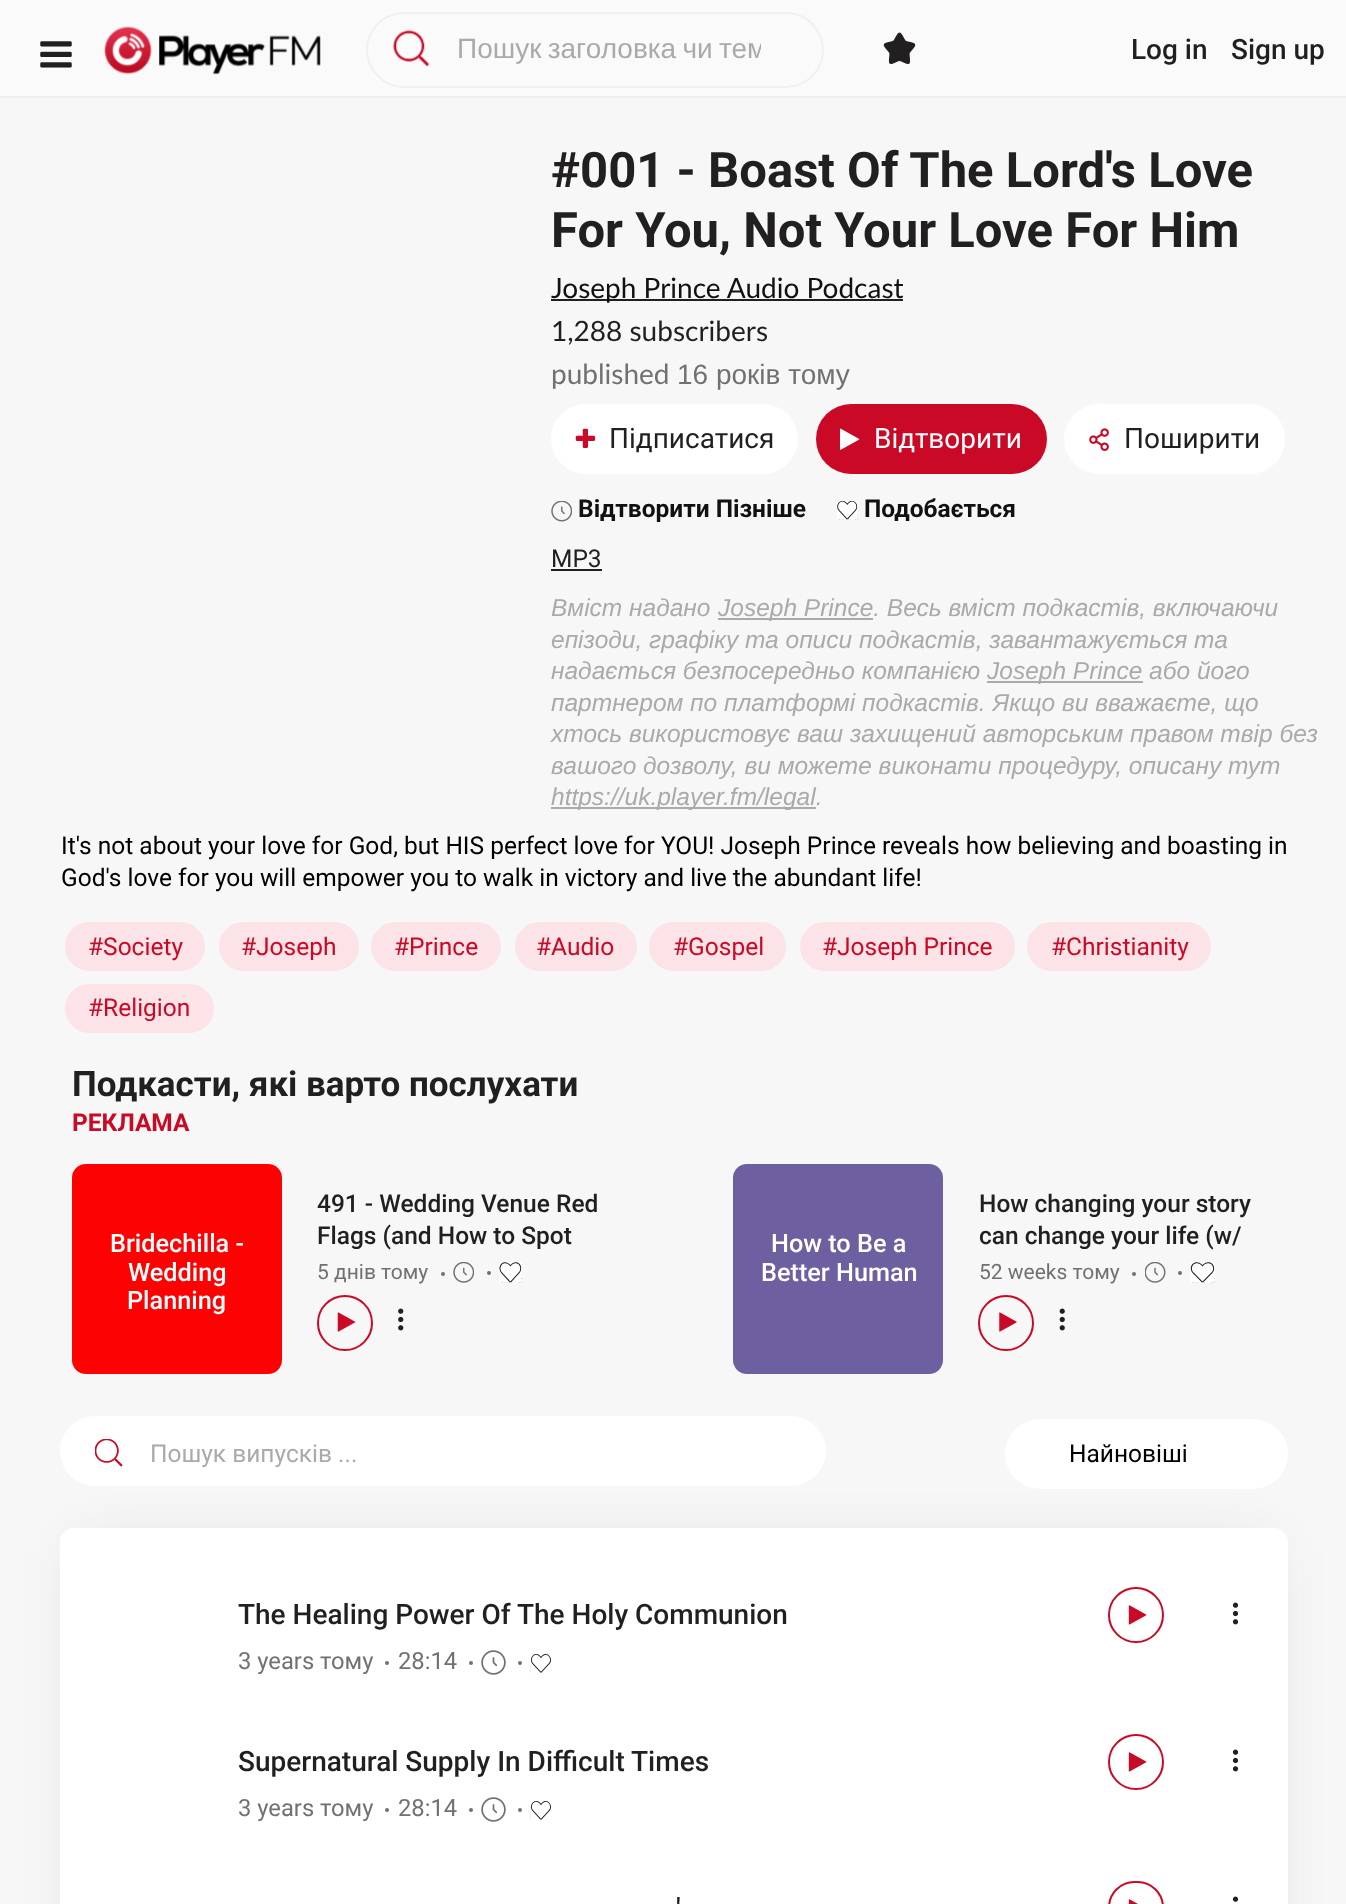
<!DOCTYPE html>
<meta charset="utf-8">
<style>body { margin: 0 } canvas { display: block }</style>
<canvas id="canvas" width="1346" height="1904"></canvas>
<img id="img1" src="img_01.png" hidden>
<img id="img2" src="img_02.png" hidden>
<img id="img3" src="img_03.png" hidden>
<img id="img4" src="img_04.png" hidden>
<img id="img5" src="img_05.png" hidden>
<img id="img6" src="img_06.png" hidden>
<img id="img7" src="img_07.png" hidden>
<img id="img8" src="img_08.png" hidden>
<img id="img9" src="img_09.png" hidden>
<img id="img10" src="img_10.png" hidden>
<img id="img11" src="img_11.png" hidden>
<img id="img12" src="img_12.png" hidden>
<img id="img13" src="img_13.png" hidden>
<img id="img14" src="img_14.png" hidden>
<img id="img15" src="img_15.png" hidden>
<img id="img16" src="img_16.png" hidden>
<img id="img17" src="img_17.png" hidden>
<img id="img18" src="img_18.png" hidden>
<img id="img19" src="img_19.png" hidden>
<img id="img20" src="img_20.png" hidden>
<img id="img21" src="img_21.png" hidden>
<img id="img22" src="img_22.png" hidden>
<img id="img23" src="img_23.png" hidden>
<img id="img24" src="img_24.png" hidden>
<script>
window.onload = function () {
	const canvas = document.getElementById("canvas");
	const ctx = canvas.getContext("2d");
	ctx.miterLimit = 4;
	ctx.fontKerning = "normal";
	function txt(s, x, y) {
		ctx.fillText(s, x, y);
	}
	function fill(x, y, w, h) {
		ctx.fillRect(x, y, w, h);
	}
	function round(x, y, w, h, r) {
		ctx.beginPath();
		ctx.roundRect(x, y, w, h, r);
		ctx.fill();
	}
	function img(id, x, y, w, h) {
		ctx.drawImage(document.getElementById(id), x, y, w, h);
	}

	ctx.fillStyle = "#F7F7F7";
	fill(0, 0, 1346, 1904);
	ctx.fillStyle = "#FBFAFA";
	fill(0, 0, 1346, 96);
	ctx.fillStyle = "#EEEEEE";
	fill(0, 96, 1346, 2);
	img("img1", 40, 41, 32, 27);
	img("img2", 104, 26, 217, 49);
	ctx.beginPath();
	ctx.roundRect(367, 13, 456, 74, 37);
	ctx.strokeStyle = "#F0F0F0";
	ctx.lineWidth = 2;
	ctx.stroke();
	img("img3", 393, 30, 37, 37);
	img("img4", 883, 32, 33, 32);
	ctx.fillStyle = "#211F1F";
	fill(551, 299, 352, 2);
	ctx.fillStyle = "#FFFFFF";
	round(551, 404, 247, 70, 35);
	img("img5", 575, 428, 20, 20);
	ctx.fillStyle = "#C90925";
	round(816, 404, 231, 70, 35);
	img("img6", 840, 428, 20, 22);
	ctx.fillStyle = "#FFFFFF";
	round(1064, 404, 221, 70, 35);
	img("img7", 1089, 428, 20, 23);
	img("img8", 551, 501, 21, 21);
	img("img9", 837, 501, 21, 19);
	ctx.fillStyle = "#211F1F";
	fill(551, 569, 51, 2);
	ctx.fillStyle = "#AAAAAA";
	fill(718, 618, 155, 2);
	fill(987, 681, 156, 2);
	fill(551, 807, 265, 2);
	ctx.fillStyle = "#FCE3E7";
	ctx.beginPath();
	ctx.roundRect(66, 923, 138, 47, 23.5);
	ctx.fill();
	ctx.strokeStyle = "#FCE3E7";
	ctx.stroke();
	ctx.beginPath();
	ctx.roundRect(220, 923, 138, 47, 23.5);
	ctx.fill();
	ctx.stroke();
	ctx.beginPath();
	ctx.roundRect(372, 923, 128, 47, 23.5);
	ctx.fill();
	ctx.stroke();
	ctx.beginPath();
	ctx.roundRect(516, 923, 120, 47, 23.5);
	ctx.fill();
	ctx.stroke();
	ctx.beginPath();
	ctx.roundRect(650, 923, 135, 47, 23.5);
	ctx.fill();
	ctx.stroke();
	ctx.beginPath();
	ctx.roundRect(801, 923, 213, 47, 23.5);
	ctx.fill();
	ctx.stroke();
	ctx.beginPath();
	ctx.roundRect(1028, 923, 182, 47, 23.5);
	ctx.fill();
	ctx.stroke();
	ctx.beginPath();
	ctx.roundRect(66, 985, 147, 47, 23.5);
	ctx.fill();
	ctx.stroke();
	ctx.fillStyle = "#FD0202";
	round(72, 1164, 210, 210, 14);
	ctx.beginPath();
	ctx.arc(345, 1323, 27, 0, Math.PI * 2);
	ctx.strokeStyle = "#C90925";
	ctx.stroke();
	img("img10", 337, 1312, 19, 20);
	img("img11", 398, 1308, 6, 23);
	ctx.fillStyle = "#717171";
	ctx.beginPath();
	ctx.arc(443, 1274, 2, 0, Math.PI * 2);
	ctx.fill();
	img("img12", 453, 1262, 21, 21);
	ctx.beginPath();
	ctx.arc(489, 1273, 2, 0, Math.PI * 2);
	ctx.fill();
	img("img13", 499, 1262, 23, 21);
	ctx.fillStyle = "#6D5FA0";
	round(733, 1164, 210, 210, 14);
	ctx.beginPath();
	ctx.arc(1006, 1323, 27, 0, Math.PI * 2);
	ctx.stroke();
	img("img14", 999, 1312, 18, 20);
	img("img15", 1059, 1308, 6, 23);
	ctx.fillStyle = "#717171";
	ctx.beginPath();
	ctx.arc(1134, 1274, 2, 0, Math.PI * 2);
	ctx.fill();
	img("img16", 1145, 1262, 21, 21);
	ctx.beginPath();
	ctx.arc(1180, 1273, 2, 0, Math.PI * 2);
	ctx.fill();
	img("img17", 1190, 1262, 25, 21);
	ctx.fillStyle = "rgba(33, 31, 31, 0.16)";
	ctx.filter = "blur(28px)";
	ctx.beginPath();
	ctx.rect(81, 1549, 1186, 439);
	ctx.fill();
	ctx.filter = "none";
	ctx.fillStyle = "#FFFFFF";
	round(60, 1416, 766, 70, 35);
	img("img18", 95, 1439, 28, 28);
	round(1005, 1419, 283, 70, 35);
	round(60, 1528, 1228, 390, 14);
	ctx.beginPath();
	ctx.arc(1136, 1615, 27, 0, Math.PI * 2);
	ctx.stroke();
	img("img19", 1128, 1605, 19, 20);
	img("img20", 1232, 1602, 7, 23);
	ctx.fillStyle = "#717171";
	ctx.beginPath();
	ctx.arc(387, 1663, 2, 0, Math.PI * 2);
	ctx.fill();
	ctx.beginPath();
	ctx.arc(471, 1663, 2, 0, Math.PI * 2);
	ctx.fill();
	img("img21", 481, 1650, 25, 25);
	ctx.beginPath();
	ctx.arc(520, 1663, 2, 0, Math.PI * 2);
	ctx.fill();
	img("img22", 530, 1654, 21, 19);
	ctx.beginPath();
	ctx.arc(1136, 1762, 27, 0, Math.PI * 2);
	ctx.stroke();
	img("img19", 1128, 1752, 19, 20);
	img("img20", 1232, 1749, 7, 23);
	ctx.beginPath();
	ctx.arc(387, 1810, 2, 0, Math.PI * 2);
	ctx.fill();
	ctx.beginPath();
	ctx.arc(471, 1810, 2, 0, Math.PI * 2);
	ctx.fill();
	img("img21", 481, 1797, 25, 25);
	ctx.beginPath();
	ctx.arc(520, 1810, 2, 0, Math.PI * 2);
	ctx.fill();
	img("img22", 530, 1801, 21, 19);
	ctx.beginPath();
	ctx.roundRect(1109, 1882, 54, 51, 27);
	ctx.stroke();
	img("img23", 1128, 1899, 10, 5);
	img("img24", 1232, 1896, 7, 6);
	ctx.save();
	ctx.beginPath();
	ctx.rect(457, 32, 304, 35);
	ctx.clip();
	ctx.wordSpacing = "-1.5px";
	ctx.font = "28px Liberation Sans";
	ctx.fillStyle = "#AAAAAA";
	txt("Пошук заголовка чи тем", 457, 58);
	ctx.restore();
	ctx.font = "500 28px Roboto";
	ctx.fillStyle = "#211F1F";
	txt("Log in", 1131, 59);
	txt("Sign up", 1231, 59);
	ctx.font = "bold 49px Roboto";
	txt("#001 - Boast Of The Lord's Love", 551, 187);
	txt("For You, Not Your Love For Him", 551, 247);
	ctx.font = "28px Lato";
	ctx.fillStyle = "#111111";
	txt("Joseph Prince Audio Podcast", 551, 298);
	ctx.fillStyle = "#211F1F";
	txt("1,288 subscribers", 551, 341);
	ctx.fillStyle = "#717171";
	txt("published", 551, 384);
	ctx.font = "28px Liberation Sans";
	txt("16 років тому", 677, 384);
	ctx.font = "28px Roboto";
	ctx.fillStyle = "#211F1F";
	txt("Підписатися", 609, 448);
	ctx.fillStyle = "#FFFFFF";
	txt("Відтворити", 874, 448);
	ctx.fillStyle = "#211F1F";
	txt("Поширити", 1124, 448);
	ctx.font = "bold 24.5px Roboto";
	ctx.fillStyle = "#111111";
	txt("Відтворити Пізніше", 578, 517);
	txt("Подобається", 864, 517);
	ctx.font = "24.5px Roboto";
	ctx.fillStyle = "#211F1F";
	txt("MP3", 551, 567);
	ctx.font = "italic 24.5px Liberation Sans";
	ctx.fillStyle = "#AAAAAA";
	txt("Вміст надано", 551, 616);
	txt("Joseph Prince. Весь вміст подкастів, включаючи", 718, 616);
	txt("епізоди, графіку та описи подкастів, завантажується та", 551, 648);
	txt("надається безпосередньо компанією", 551, 679);
	txt("Joseph Prince або його", 987, 679);
	txt("партнером по платформі подкастів. Якщо ви вважаєте, що", 551, 711);
	txt("хтось використовує ваш захищений авторським правом твір без", 551, 742);
	txt("вашого дозволу, ви можете виконати процедуру, описану тут", 551, 774);
	txt("https://uk.player.fm/legal.", 551, 805);
	ctx.font = "24.5px Roboto";
	ctx.fillStyle = "#000000";
	txt("It's not about your love for God, but HIS perfect love for YOU! Joseph Prince reveals how believing and boasting in", 61, 854);
	txt("God's love for you will empower you to walk in victory and live the abundant life!", 61, 886);
	ctx.fillStyle = "#C90925";
	txt("#Society", 88, 955);
	txt("#Joseph", 241, 955);
	txt("#Prince", 394, 955);
	txt("#Audio", 536, 955);
	txt("#Gospel", 673, 955);
	txt("#Joseph Prince", 822, 955);
	txt("#Christianity", 1051, 955);
	txt("#Religion", 88, 1016);
	ctx.font = "bold 35px Roboto";
	ctx.fillStyle = "#211F1F";
	txt("Подкасти, які варто послухати", 72, 1096);
	ctx.font = "bold 24.5px Roboto";
	ctx.fillStyle = "#C90925";
	txt("РЕКЛАМА", 72, 1131);
	ctx.font = "500 25.25px Roboto";
	ctx.fillStyle = "#FFFFFF";
	txt("Bridechilla -", 110, 1252);
	txt("Wedding", 128, 1281);
	txt("Planning", 127, 1309);
	ctx.font = "500 24.5px Roboto";
	ctx.fillStyle = "#211F1F";
	txt("491 - Wedding Venue Red", 317, 1212);
	txt("Flags (and How to Spot", 317, 1244);
	ctx.font = "21px Roboto";
	ctx.fillStyle = "#717171";
	txt("5 днів тому", 317, 1279);
	ctx.font = "500 25.25px Roboto";
	ctx.fillStyle = "#FFFFFF";
	txt("How to Be a", 771, 1252);
	txt("Better Human", 761, 1281);
	ctx.font = "500 24.5px Roboto";
	ctx.fillStyle = "#211F1F";
	txt("How changing your story", 979, 1212);
	txt("can change your life (w/", 979, 1244);
	ctx.font = "21px Roboto";
	ctx.fillStyle = "#717171";
	txt("52 weeks тому", 979, 1279);
	ctx.save();
	ctx.beginPath();
	ctx.rect(149, 1439, 616, 28);
	ctx.clip();
	ctx.font = "24.5px Roboto";
	ctx.fillStyle = "#AAAAAA";
	txt("Пошук випусків ...", 150, 1462);
	ctx.restore();
	ctx.font = "24.5px Roboto";
	ctx.fillStyle = "#000000";
	txt("Найновіші", 1069, 1462);
	ctx.font = "500 28px Roboto";
	ctx.fillStyle = "#211F1F";
	txt("The Healing Power Of The Holy Communion", 238, 1624);
	ctx.font = "23.75px Roboto";
	ctx.fillStyle = "#717171";
	txt("3 years тому", 238, 1669);
	txt("28:14", 398, 1669);
	ctx.font = "500 28px Roboto";
	ctx.fillStyle = "#211F1F";
	txt("Supernatural Supply In Difficult Times", 238, 1771);
	ctx.font = "23.75px Roboto";
	ctx.fillStyle = "#717171";
	txt("3 years тому", 238, 1816);
	txt("28:14", 398, 1816);
	ctx.font = "500 28px Roboto";
	ctx.fillStyle = "#211F1F";
	txt("'", 676, 1918);
};
</script>
